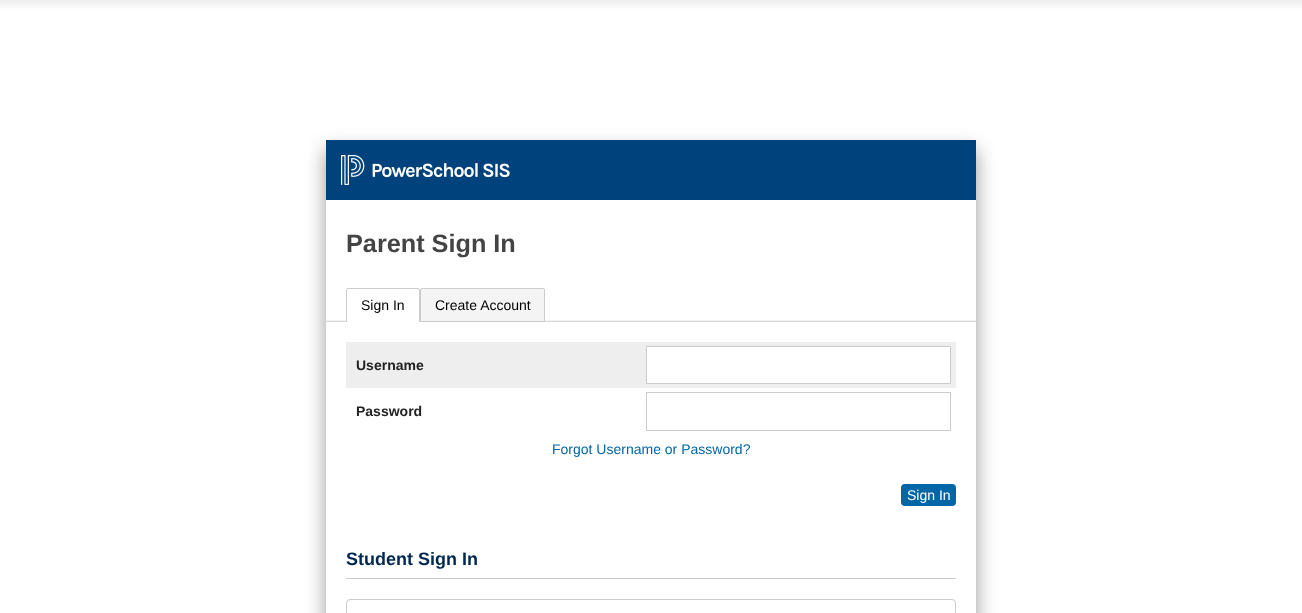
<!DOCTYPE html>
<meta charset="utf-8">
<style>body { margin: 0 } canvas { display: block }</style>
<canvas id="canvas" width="1302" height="613"></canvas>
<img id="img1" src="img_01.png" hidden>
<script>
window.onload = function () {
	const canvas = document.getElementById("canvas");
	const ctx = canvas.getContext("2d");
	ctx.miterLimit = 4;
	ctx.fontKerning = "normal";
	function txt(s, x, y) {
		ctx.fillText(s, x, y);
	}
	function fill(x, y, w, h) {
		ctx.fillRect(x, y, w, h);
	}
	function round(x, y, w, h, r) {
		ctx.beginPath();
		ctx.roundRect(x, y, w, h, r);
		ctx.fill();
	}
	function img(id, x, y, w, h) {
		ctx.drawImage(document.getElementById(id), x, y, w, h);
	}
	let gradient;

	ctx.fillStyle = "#FFFFFF";
	fill(0, 0, 1302, 613);
	gradient = ctx.createLinearGradient(0, 0, 0, 10);
	gradient.addColorStop(0, "#EDEDED");
	gradient.addColorStop(1, "#FFFFFF");
	ctx.fillStyle = gradient;
	fill(0, 0, 1302, 9);
	ctx.save();
	ctx.beginPath();
	ctx.moveTo(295, 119);
	ctx.lineTo(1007, 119);
	ctx.lineTo(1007, 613);
	ctx.lineTo(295, 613);
	ctx.closePath();
	ctx.moveTo(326, 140);
	ctx.lineTo(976, 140);
	ctx.lineTo(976, 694);
	ctx.lineTo(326, 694);
	ctx.closePath();
	ctx.clip("evenodd");
	ctx.fillStyle = "rgba(0, 0, 0, 0.4)";
	ctx.filter = "blur(10px)";
	ctx.beginPath();
	ctx.rect(326, 150, 650, 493);
	ctx.fill();
	ctx.filter = "none";
	ctx.restore();
	ctx.fillStyle = "#00427C";
	fill(326, 140, 650, 60);
	img("img1", 341, 155, 169, 30);
	gradient = ctx.createLinearGradient(651, 322, 651, 288);
	gradient.addColorStop(0, "#CCCCCC");
	gradient.addColorStop(0.06, "#FFFFFF");
	gradient.addColorStop(1, "#FFFFFF");
	ctx.fillStyle = gradient;
	fill(326, 320, 650, 2);
	ctx.fillStyle = "#FFFFFF";
	ctx.beginPath();
	ctx.roundRect(346, 288, 74, 34, [2, 2, 0, 0]);
	ctx.fill();
	ctx.save();
	ctx.beginPath();
	ctx.rect(326, 288, 650, 34);
	ctx.clip();
	ctx.beginPath();
	ctx.roundRect(346.5, 288.5, 73, 34, [1.5, 1.5, 0, 0]);
	ctx.strokeStyle = "#CCCCCC";
	ctx.stroke();
	ctx.restore();
	ctx.fillStyle = "#F4F4F4";
	ctx.beginPath();
	ctx.roundRect(420.5, 288.5, 124, 33, [1.5, 1.5, 0, 0]);
	ctx.fill();
	ctx.strokeStyle = "#CCCCCC";
	ctx.stroke();
	ctx.fillStyle = "#EEEEEE";
	fill(346, 342, 610, 46);
	ctx.fillStyle = "#FFFFFF";
	ctx.beginPath();
	ctx.rect(646.5, 346.5, 304, 37);
	ctx.fill();
	ctx.stroke();
	ctx.strokeRect(646.5, 392.5, 304, 38);
	ctx.fillStyle = "#0066A5";
	round(901, 484, 55, 22, 4);
	ctx.fillStyle = "#CCCCCC";
	fill(346, 578, 610, 1);
	ctx.beginPath();
	ctx.roundRect(346.5, 599.5, 609, 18, 3.5);
	ctx.stroke();
	ctx.font = "bold 25.25px Liberation Sans";
	ctx.fillStyle = "#444444";
	txt("Parent Sign In", 346, 252);
	ctx.font = "14px Liberation Sans";
	ctx.fillStyle = "#000000";
	txt("Sign In", 361, 310);
	txt("Create Account", 435, 310);
	ctx.font = "bold 14px Liberation Sans";
	ctx.fillStyle = "#222222";
	txt("Username", 356, 370);
	txt("Password", 356, 416);
	ctx.font = "14px Liberation Sans";
	ctx.fillStyle = "#0066A5";
	txt("Forgot Username or Password?", 552, 454);
	ctx.fillStyle = "#FFFFFF";
	txt("Sign In", 907, 500);
	ctx.font = "bold 18px Liberation Sans";
	ctx.fillStyle = "#002850";
	txt("Student Sign In", 346, 565);
};
</script>
